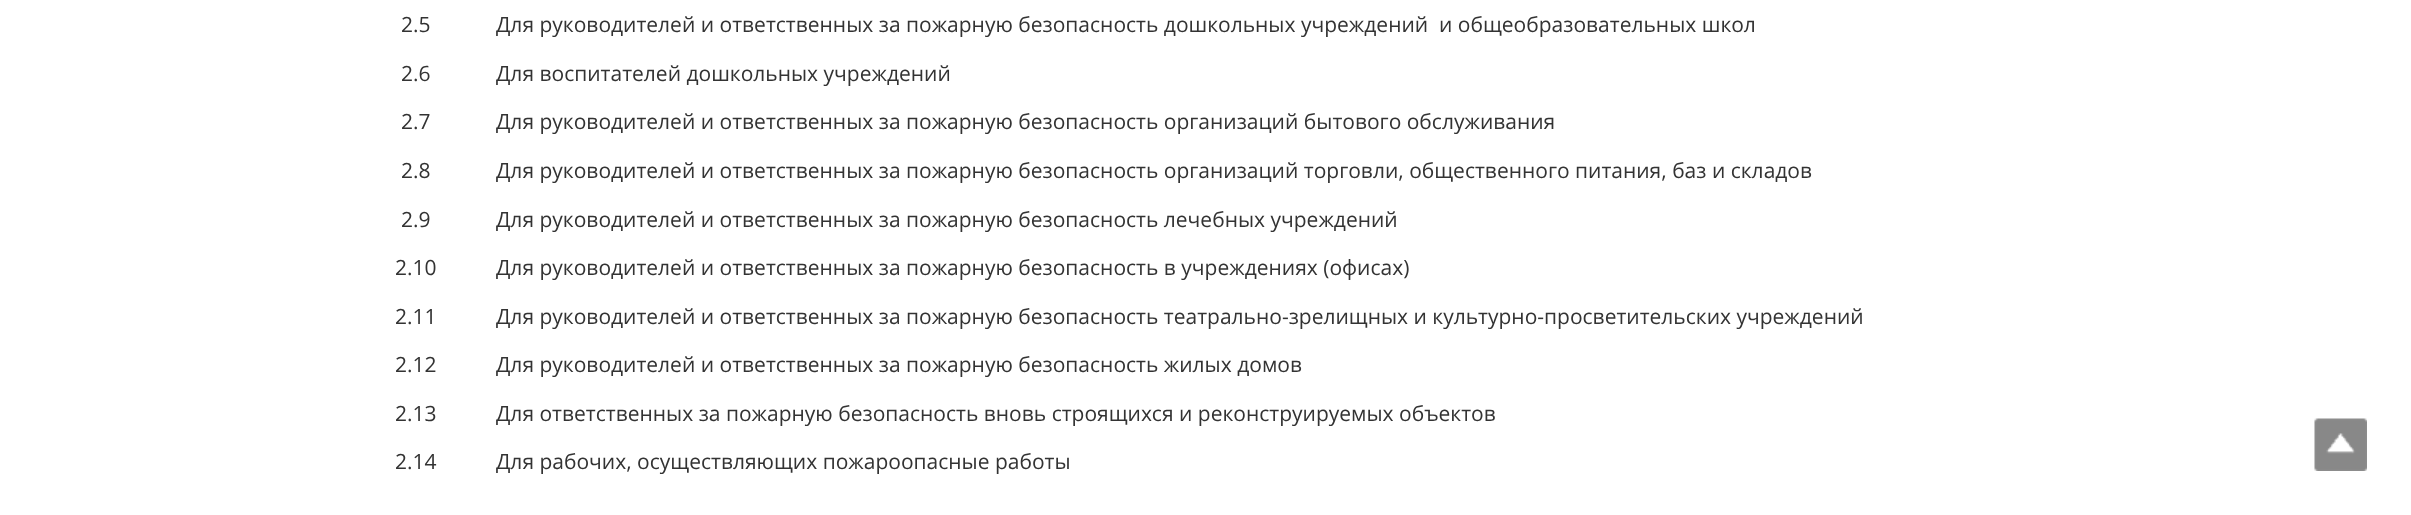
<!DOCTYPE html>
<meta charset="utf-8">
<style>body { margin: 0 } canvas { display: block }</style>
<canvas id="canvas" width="2411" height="515"></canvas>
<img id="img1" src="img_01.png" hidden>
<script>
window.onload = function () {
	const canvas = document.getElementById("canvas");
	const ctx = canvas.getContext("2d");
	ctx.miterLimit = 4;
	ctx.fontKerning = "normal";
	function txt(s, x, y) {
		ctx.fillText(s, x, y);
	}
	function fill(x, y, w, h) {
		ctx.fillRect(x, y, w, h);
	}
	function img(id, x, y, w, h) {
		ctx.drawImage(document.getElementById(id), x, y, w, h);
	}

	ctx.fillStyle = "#FFFFFF";
	fill(0, 0, 2411, 515);
	img("img1", 2314, 418, 53, 53);
	ctx.font = "21px Open Sans";
	ctx.fillStyle = "#333333";
	txt("2.5", 401, 32);
	txt("Для руководителей и ответственных за пожарную безопасность дошкольных учреждений  и общеобразовательных школ", 496, 32);
	txt("2.6", 401, 81);
	txt("Для воспитателей дошкольных учреждений", 496, 81);
	txt("2.7", 401, 129);
	txt("Для руководителей и ответственных за пожарную безопасность организаций бытового обслуживания", 496, 129);
	txt("2.8", 401, 178);
	txt("Для руководителей и ответственных за пожарную безопасность организаций торговли, общественного питания, баз и складов", 496, 178);
	txt("2.9", 401, 227);
	txt("Для руководителей и ответственных за пожарную безопасность лечебных учреждений", 496, 227);
	txt("2.10", 395, 275);
	txt("Для руководителей и ответственных за пожарную безопасность в учреждениях (офисах)", 496, 275);
	txt("2.11", 395, 324);
	txt("Для руководителей и ответственных за пожарную безопасность театрально-зрелищных и культурно-просветительских учреждений", 496, 324);
	txt("2.12", 395, 372);
	txt("Для руководителей и ответственных за пожарную безопасность жилых домов", 496, 372);
	txt("2.13", 395, 421);
	txt("Для ответственных за пожарную безопасность вновь строящихся и реконструируемых объектов", 496, 421);
	txt("2.14", 395, 469);
	txt("Для рабочих, осуществляющих пожароопасные работы", 496, 469);
};
</script>
